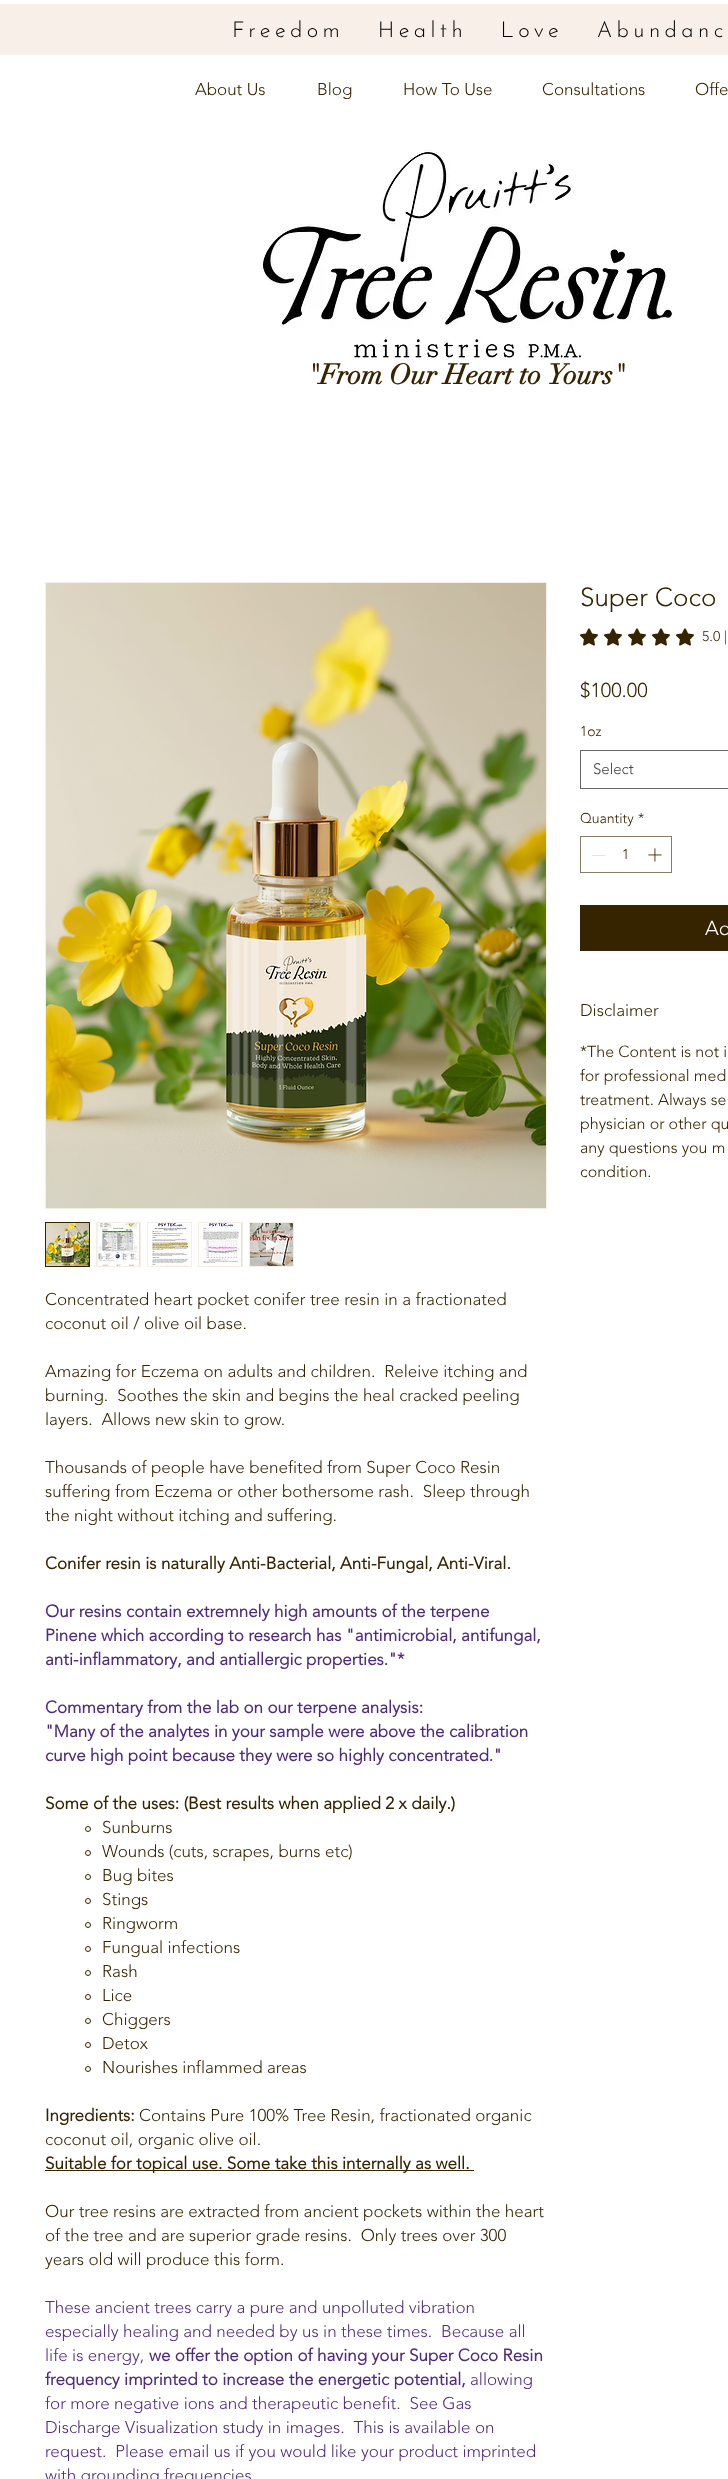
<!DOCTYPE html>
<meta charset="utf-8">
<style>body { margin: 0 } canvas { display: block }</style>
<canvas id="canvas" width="728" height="2479"></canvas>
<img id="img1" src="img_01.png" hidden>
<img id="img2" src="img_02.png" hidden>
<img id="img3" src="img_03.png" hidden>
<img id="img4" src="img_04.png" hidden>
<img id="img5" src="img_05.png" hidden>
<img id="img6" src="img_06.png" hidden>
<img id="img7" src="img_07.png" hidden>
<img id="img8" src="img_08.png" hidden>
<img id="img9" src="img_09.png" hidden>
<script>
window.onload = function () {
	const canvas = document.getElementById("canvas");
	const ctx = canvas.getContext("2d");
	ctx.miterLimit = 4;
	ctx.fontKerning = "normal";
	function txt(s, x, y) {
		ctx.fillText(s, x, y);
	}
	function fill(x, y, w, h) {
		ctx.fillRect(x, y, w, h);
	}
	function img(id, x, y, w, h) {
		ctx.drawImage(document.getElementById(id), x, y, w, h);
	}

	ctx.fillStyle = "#FFFFFF";
	fill(0, 0, 728, 2479);
	ctx.fillStyle = "#F7EFE8";
	fill(0, 4, 728, 51);
	img("img1", 261, 149, 412, 211);
	img("img2", 580, 628, 18, 18);
	img("img2", 604, 628, 18, 18);
	img("img2", 628, 628, 18, 18);
	img("img2", 652, 628, 18, 18);
	img("img2", 676, 628, 18, 18);
	ctx.strokeStyle = "#666666";
	ctx.strokeRect(580.5, 750.5, 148, 38);
	ctx.strokeStyle = "#867C67";
	ctx.strokeRect(580.5, 836.5, 91, 36);
	ctx.fillStyle = "#E3E3E3";
	fill(592, 855, 13, 1);
	img("img3", 648, 848, 14, 14);
	ctx.fillStyle = "#362401";
	fill(580, 905, 148, 46);
	ctx.strokeStyle = "#F3EFE7";
	ctx.strokeRect(45.5, 582.5, 501, 626);
	img("img4", 46, 583, 500, 625);
	ctx.strokeStyle = "#362401";
	ctx.strokeRect(45.5, 1222.5, 44, 44);
	img("img5", 46, 1223, 43, 43);
	ctx.strokeStyle = "#F3EFE7";
	ctx.strokeRect(96.5, 1222.5, 44, 44);
	img("img6", 97, 1223, 43, 43);
	ctx.strokeRect(147.5, 1222.5, 44, 44);
	img("img7", 151, 1223, 38, 43);
	ctx.strokeRect(198.5, 1222.5, 44, 44);
	img("img8", 203, 1223, 39, 43);
	ctx.strokeRect(249.5, 1222.5, 44, 44);
	img("img9", 250, 1223, 43, 43);
	ctx.fillStyle = "#FFFFFF";
	ctx.beginPath();
	ctx.moveTo(266, 1238);
	ctx.lineTo(266, 1251);
	ctx.lineTo(278, 1244.5);
	ctx.closePath();
	ctx.fill();
	ctx.beginPath();
	ctx.arc(88, 1829, 2.5, 0, Math.PI * 2);
	ctx.strokeStyle = "#362401";
	ctx.stroke();
	ctx.beginPath();
	ctx.arc(88, 1853, 2.5, 0, Math.PI * 2);
	ctx.stroke();
	ctx.beginPath();
	ctx.arc(88, 1877, 2.5, 0, Math.PI * 2);
	ctx.stroke();
	ctx.beginPath();
	ctx.arc(88, 1901, 2.5, 0, Math.PI * 2);
	ctx.stroke();
	ctx.beginPath();
	ctx.arc(88, 1925, 2.5, 0, Math.PI * 2);
	ctx.stroke();
	ctx.beginPath();
	ctx.arc(88, 1949, 2.5, 0, Math.PI * 2);
	ctx.stroke();
	ctx.beginPath();
	ctx.arc(88, 1973, 2.5, 0, Math.PI * 2);
	ctx.stroke();
	ctx.beginPath();
	ctx.arc(88, 1997, 2.5, 0, Math.PI * 2);
	ctx.stroke();
	ctx.beginPath();
	ctx.arc(88, 2021, 2.5, 0, Math.PI * 2);
	ctx.stroke();
	ctx.beginPath();
	ctx.arc(88, 2045, 2.5, 0, Math.PI * 2);
	ctx.stroke();
	ctx.beginPath();
	ctx.arc(88, 2069, 2.5, 0, Math.PI * 2);
	ctx.stroke();
	ctx.fillStyle = "#362401";
	fill(45, 2170, 429, 1);
	ctx.letterSpacing = "4.4px";
	ctx.font = "100 22px Josefin Sans";
	ctx.fillStyle = "#000000";
	txt("Freedom   Health   Love   Abundanc", 232, 37);
	ctx.letterSpacing = "0px";
	ctx.font = "300 17px 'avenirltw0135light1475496'";
	ctx.fillStyle = "#362401";
	txt("About Us", 195, 95);
	txt("Blog", 317, 95);
	txt("How To Use", 403, 95);
	txt("Consultations", 542, 95);
	txt("Offe", 695, 95);
	ctx.font = "bold 28px didot";
	txt("\"From Our Heart to Yours\"", 307, 384);
	ctx.font = "300 26px 'avenirltw0135light1475496'";
	txt("Super Coco", 580, 606);
	ctx.font = "300 14px 'avenirltw0135light1475496'";
	txt("5.0 |", 702, 641);
	ctx.font = "300 20px 'avenirltw0135light1475496'";
	txt("$100.00", 580, 697);
	ctx.font = "300 14px 'avenirltw0135light1475496'";
	txt("1oz", 580, 736);
	ctx.font = "300 15px 'avenirltw0135light1475496'";
	ctx.fillStyle = "#444444";
	txt("Select", 593, 774);
	ctx.font = "300 14px 'avenirltw0135light1475496'";
	ctx.fillStyle = "#362401";
	txt("Quantity", 580, 823);
	txt("*", 638, 823);
	txt("1", 622, 859);
	ctx.font = "300 20px 'avenirltw0135light1475496'";
	ctx.fillStyle = "#FFFFFF";
	txt("Ad", 705, 935);
	ctx.font = "300 17px 'avenirltw0135light1475496'";
	ctx.fillStyle = "#362401";
	txt("Disclaimer", 580, 1016);
	ctx.font = "300 16px 'avenirltw0135light1475496'";
	txt("*The Content is not i", 580, 1057);
	txt("for professional med", 580, 1081);
	txt("treatment. Always se", 580, 1105);
	txt("physician or other qu", 580, 1129);
	txt("any questions you m", 580, 1153);
	txt("condition.", 580, 1177);
	ctx.font = "300 17px 'avenirltw0135light1475496'";
	txt("Concentrated heart pocket conifer tree resin in a fractionated", 45, 1305);
	txt("coconut oil / olive oil base.", 45, 1329);
	txt("Amazing for Eczema on adults and children.  Releive itching and", 45, 1377);
	txt("burning.  Soothes the skin and begins the heal cracked peeling", 45, 1401);
	txt("layers.  Allows new skin to grow.", 45, 1425);
	txt("Thousands of people have benefited from Super Coco Resin", 45, 1473);
	txt("suffering from Eczema or other bothersome rash.  Sleep through", 45, 1497);
	txt("the night without itching and suffering.", 45, 1521);
	ctx.font = "bold 17px 'avenirltw0135light1475496'";
	txt("Conifer resin is naturally Anti-Bacterial, Anti-Fungal, Anti-Viral.", 45, 1569);
	ctx.fillStyle = "#502B7B";
	txt("Our resins contain extremnely high amounts of the terpene", 45, 1617);
	txt("Pinene which according to research has \"antimicrobial, antifungal,", 45, 1641);
	txt("anti-inflammatory, and antiallergic properties.\"*", 45, 1665);
	txt("Commentary from the lab on our terpene analysis:", 45, 1713);
	txt("\"Many of the analytes in your sample were above the calibration", 45, 1737);
	txt("curve high point because they were so highly concentrated.\"", 45, 1761);
	ctx.fillStyle = "#362401";
	txt("Some of the uses: (Best results when applied 2 x daily.)", 45, 1809);
	ctx.font = "300 17px 'avenirltw0135light1475496'";
	txt("Sunburns", 102, 1833);
	txt("Wounds (cuts, scrapes, burns etc)", 102, 1857);
	txt("Bug bites", 102, 1881);
	txt("Stings", 102, 1905);
	txt("Ringworm", 102, 1929);
	txt("Fungual infections", 102, 1953);
	txt("Rash", 102, 1977);
	txt("Lice", 102, 2001);
	txt("Chiggers", 102, 2025);
	txt("Detox", 102, 2049);
	txt("Nourishes inflammed areas", 102, 2073);
	ctx.font = "bold 17px 'avenirltw0135light1475496'";
	txt("Ingredients:", 45, 2121);
	ctx.font = "300 17px 'avenirltw0135light1475496'";
	txt("Contains Pure 100% Tree Resin, fractionated organic", 139, 2121);
	txt("coconut oil, organic olive oil.", 45, 2145);
	ctx.font = "bold 17px 'avenirltw0135light1475496'";
	txt("Suitable for topical use. Some take this internally as well.", 45, 2169);
	ctx.font = "300 17px 'avenirltw0135light1475496'";
	txt("Our tree resins are extracted from ancient pockets within the heart", 45, 2217);
	txt("of the tree and are superior grade resins.  Only trees over 300", 45, 2241);
	txt("years old will produce this form.", 45, 2265);
	ctx.fillStyle = "#502B7B";
	txt("These ancient trees carry a pure and unpolluted vibration", 45, 2313);
	txt("especially healing and needed by us in these times.  Because all", 45, 2337);
	txt("life is energy,", 45, 2361);
	ctx.font = "bold 17px 'avenirltw0135light1475496'";
	txt("we offer the option of having your Super Coco Resin", 149, 2361);
	txt("frequency imprinted to increase the energetic potential,", 45, 2385);
	ctx.font = "300 17px 'avenirltw0135light1475496'";
	txt("allowing", 470, 2385);
	txt("for more negative ions and therapeutic benefit.  See Gas", 45, 2409);
	txt("Discharge Visualization study in images.  This is available on", 45, 2433);
	txt("request.  Please email us if you would like your product imprinted", 45, 2457);
	txt("with grounding frequencies", 45, 2481);
};
</script>
